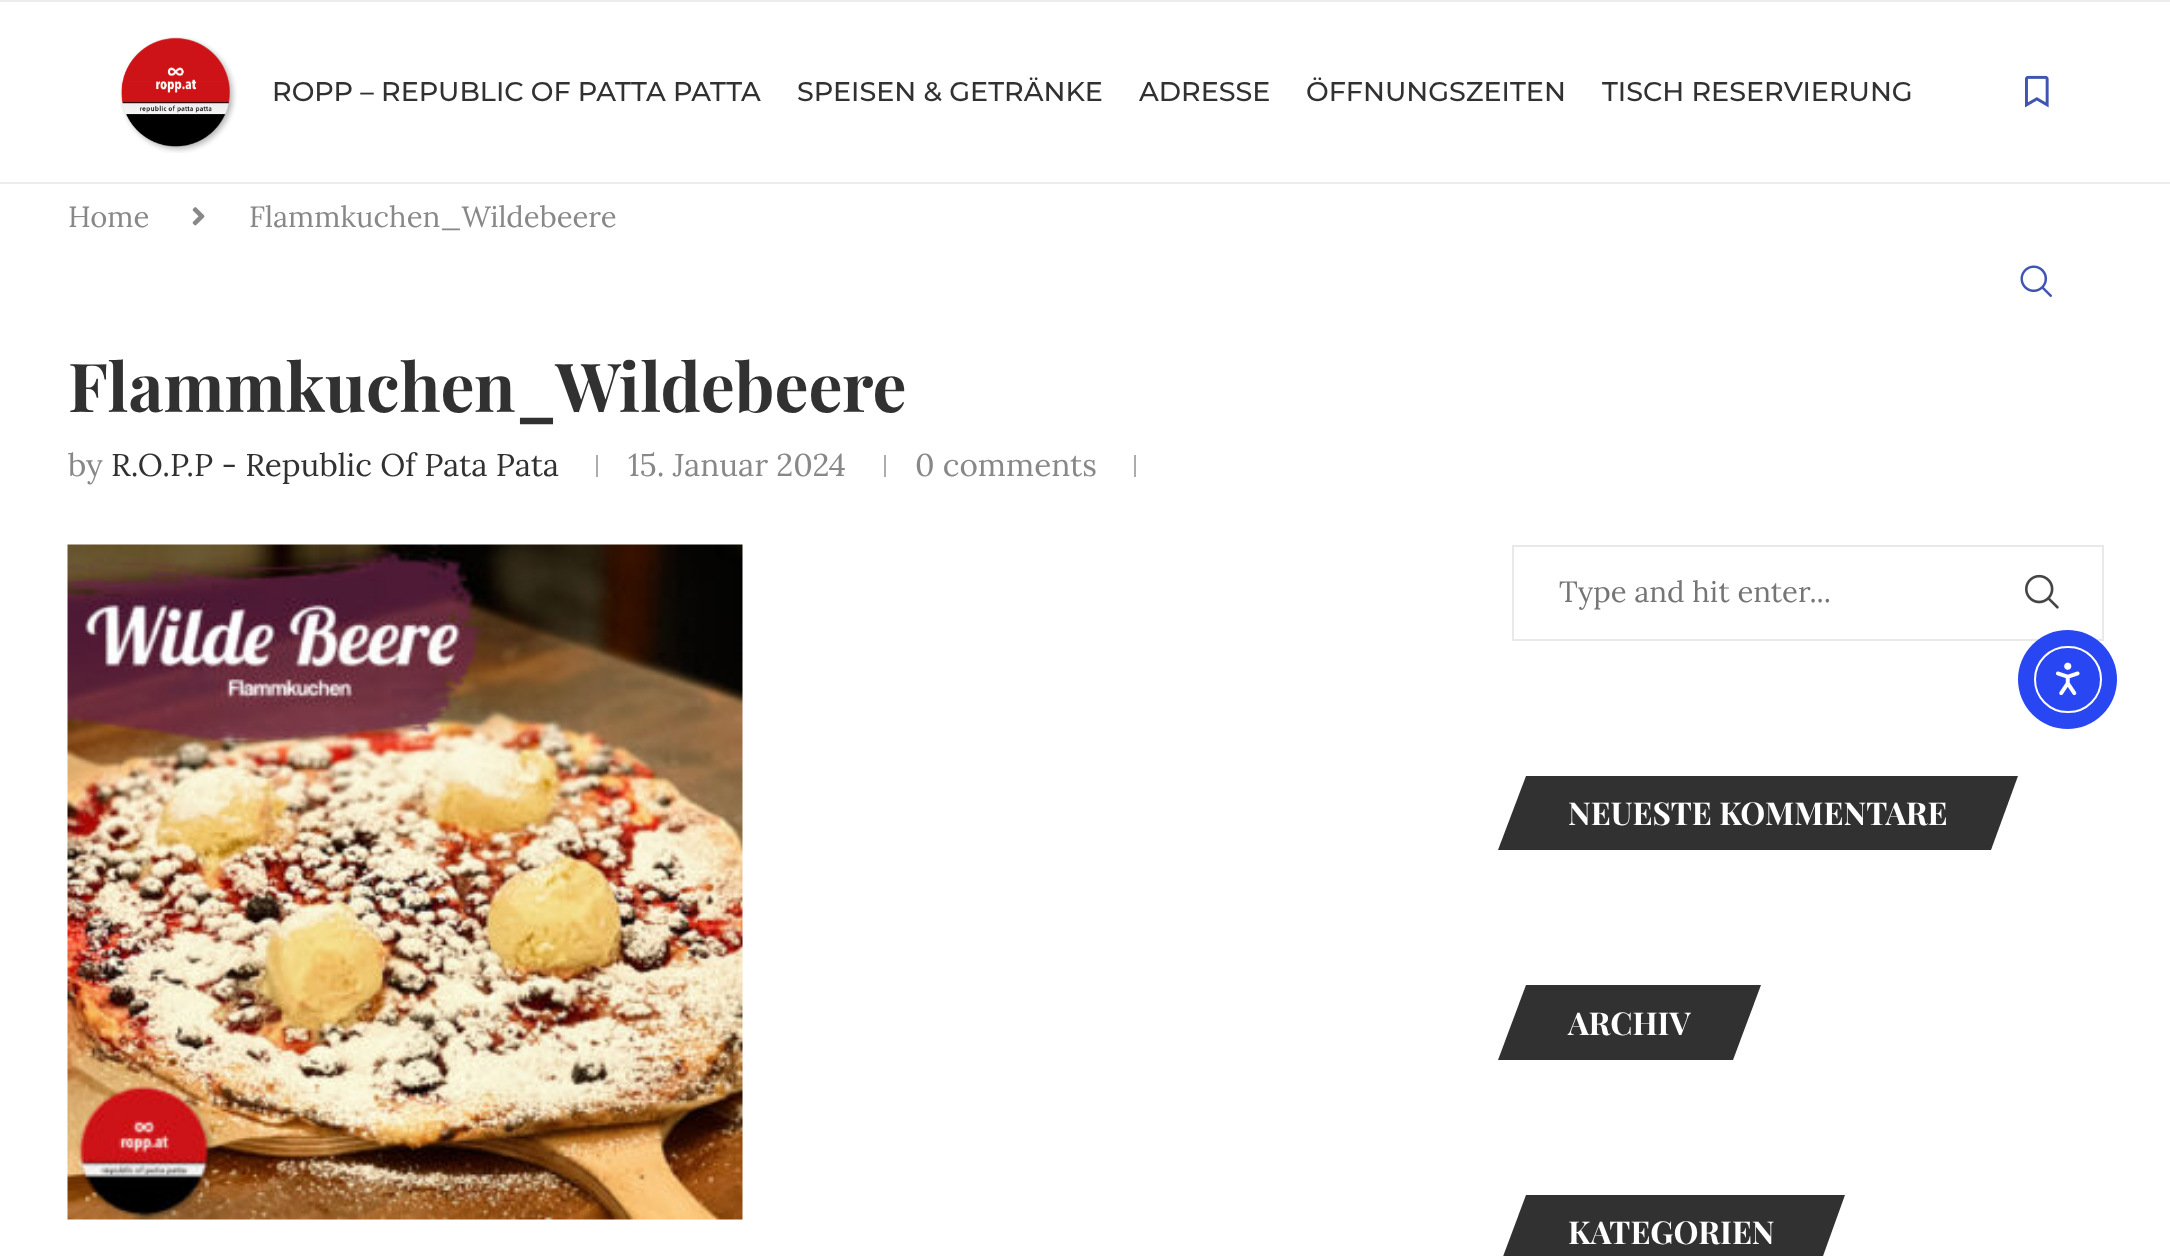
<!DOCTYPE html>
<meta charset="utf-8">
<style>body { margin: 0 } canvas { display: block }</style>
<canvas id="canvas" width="2170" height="1256"></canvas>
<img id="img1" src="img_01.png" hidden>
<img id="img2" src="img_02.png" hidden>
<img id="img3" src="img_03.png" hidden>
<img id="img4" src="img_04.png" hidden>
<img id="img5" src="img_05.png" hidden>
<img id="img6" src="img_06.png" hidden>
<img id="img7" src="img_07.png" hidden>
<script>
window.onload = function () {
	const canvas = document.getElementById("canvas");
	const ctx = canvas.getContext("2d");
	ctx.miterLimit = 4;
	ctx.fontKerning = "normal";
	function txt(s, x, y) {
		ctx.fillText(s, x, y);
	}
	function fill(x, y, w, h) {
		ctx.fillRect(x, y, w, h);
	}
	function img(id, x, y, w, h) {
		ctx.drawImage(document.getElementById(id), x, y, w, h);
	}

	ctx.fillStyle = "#FFFFFF";
	fill(0, 0, 2170, 1256);
	ctx.fillStyle = "#ECECEC";
	fill(0, 0, 2170, 2);
	fill(0, 182, 2170, 2);
	img("img1", 120, 37, 117, 116);
	img("img2", 2025, 75, 24, 33);
	img("img3", 2020, 265, 32, 32);
	img("img4", 192, 207, 13, 19);
	ctx.fillStyle = "#ACACAC";
	fill(596, 455, 2, 22);
	fill(884, 455, 2, 22);
	fill(1134, 455, 2, 22);
	img("img5", 67, 544, 676, 676);
	ctx.strokeStyle = "#E9E9E9";
	ctx.lineWidth = 2;
	ctx.strokeRect(1513, 546, 590, 94);
	img("img6", 2025, 574, 34, 35);
	ctx.fillStyle = "#313131";
	ctx.beginPath();
	ctx.moveTo(1526, 776);
	ctx.lineTo(2018, 776);
	ctx.lineTo(1991, 850);
	ctx.lineTo(1498, 850);
	ctx.closePath();
	ctx.fill();
	ctx.beginPath();
	ctx.moveTo(1526, 985);
	ctx.lineTo(1761, 985);
	ctx.lineTo(1733, 1060);
	ctx.lineTo(1498, 1060);
	ctx.closePath();
	ctx.fill();
	ctx.beginPath();
	ctx.moveTo(1526, 1195);
	ctx.lineTo(1845, 1195);
	ctx.lineTo(1818, 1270);
	ctx.lineTo(1498, 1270);
	ctx.closePath();
	ctx.fill();
	ctx.fillStyle = "#2847F3";
	ctx.beginPath();
	ctx.arc(2067.5, 679.5, 49.5, 0, Math.PI * 2);
	ctx.fill();
	ctx.beginPath();
	ctx.roundRect(2035, 647, 66, 65, 32.5);
	ctx.strokeStyle = "#FFFFFF";
	ctx.stroke();
	img("img7", 2056, 662, 24, 34);
	ctx.font = "500 27px Montserrat";
	ctx.fillStyle = "#313131";
	txt("ROPP – REPUBLIC OF PATTA PATTA", 272, 101);
	txt("SPEISEN & GETRÄNKE", 797, 101);
	txt("ADRESSE", 1139, 101);
	txt("ÖFFNUNGSZEITEN", 1306, 101);
	txt("TISCH RESERVIERUNG", 1602, 101);
	ctx.font = "29.25px Lora";
	ctx.fillStyle = "#888888";
	txt("Home", 68, 227);
	txt("Flammkuchen_Wildebeere", 249, 227);
	ctx.font = "bold 67.5px Playfair Display";
	ctx.fillStyle = "#313131";
	txt("Flammkuchen_Wildebeere", 68, 412);
	ctx.font = "31.5px Lora";
	ctx.fillStyle = "#888888";
	txt("by", 68, 476);
	ctx.fillStyle = "#313131";
	txt("R.O.P.P - Republic Of Pata Pata", 111, 476);
	ctx.fillStyle = "#888888";
	txt("15. Januar 2024", 628, 476);
	txt("0 comments", 915, 476);
	ctx.font = "29.25px Lora";
	ctx.fillStyle = "#757575";
	txt("Type and hit enter...", 1559, 602);
	ctx.font = "bold 31.5px Playfair Display";
	ctx.fillStyle = "#FFFFFF";
	txt("NEUESTE KOMMENTARE", 1568, 825);
	txt("ARCHIV", 1568, 1035);
	txt("KATEGORIEN", 1568, 1244);
};
</script>
